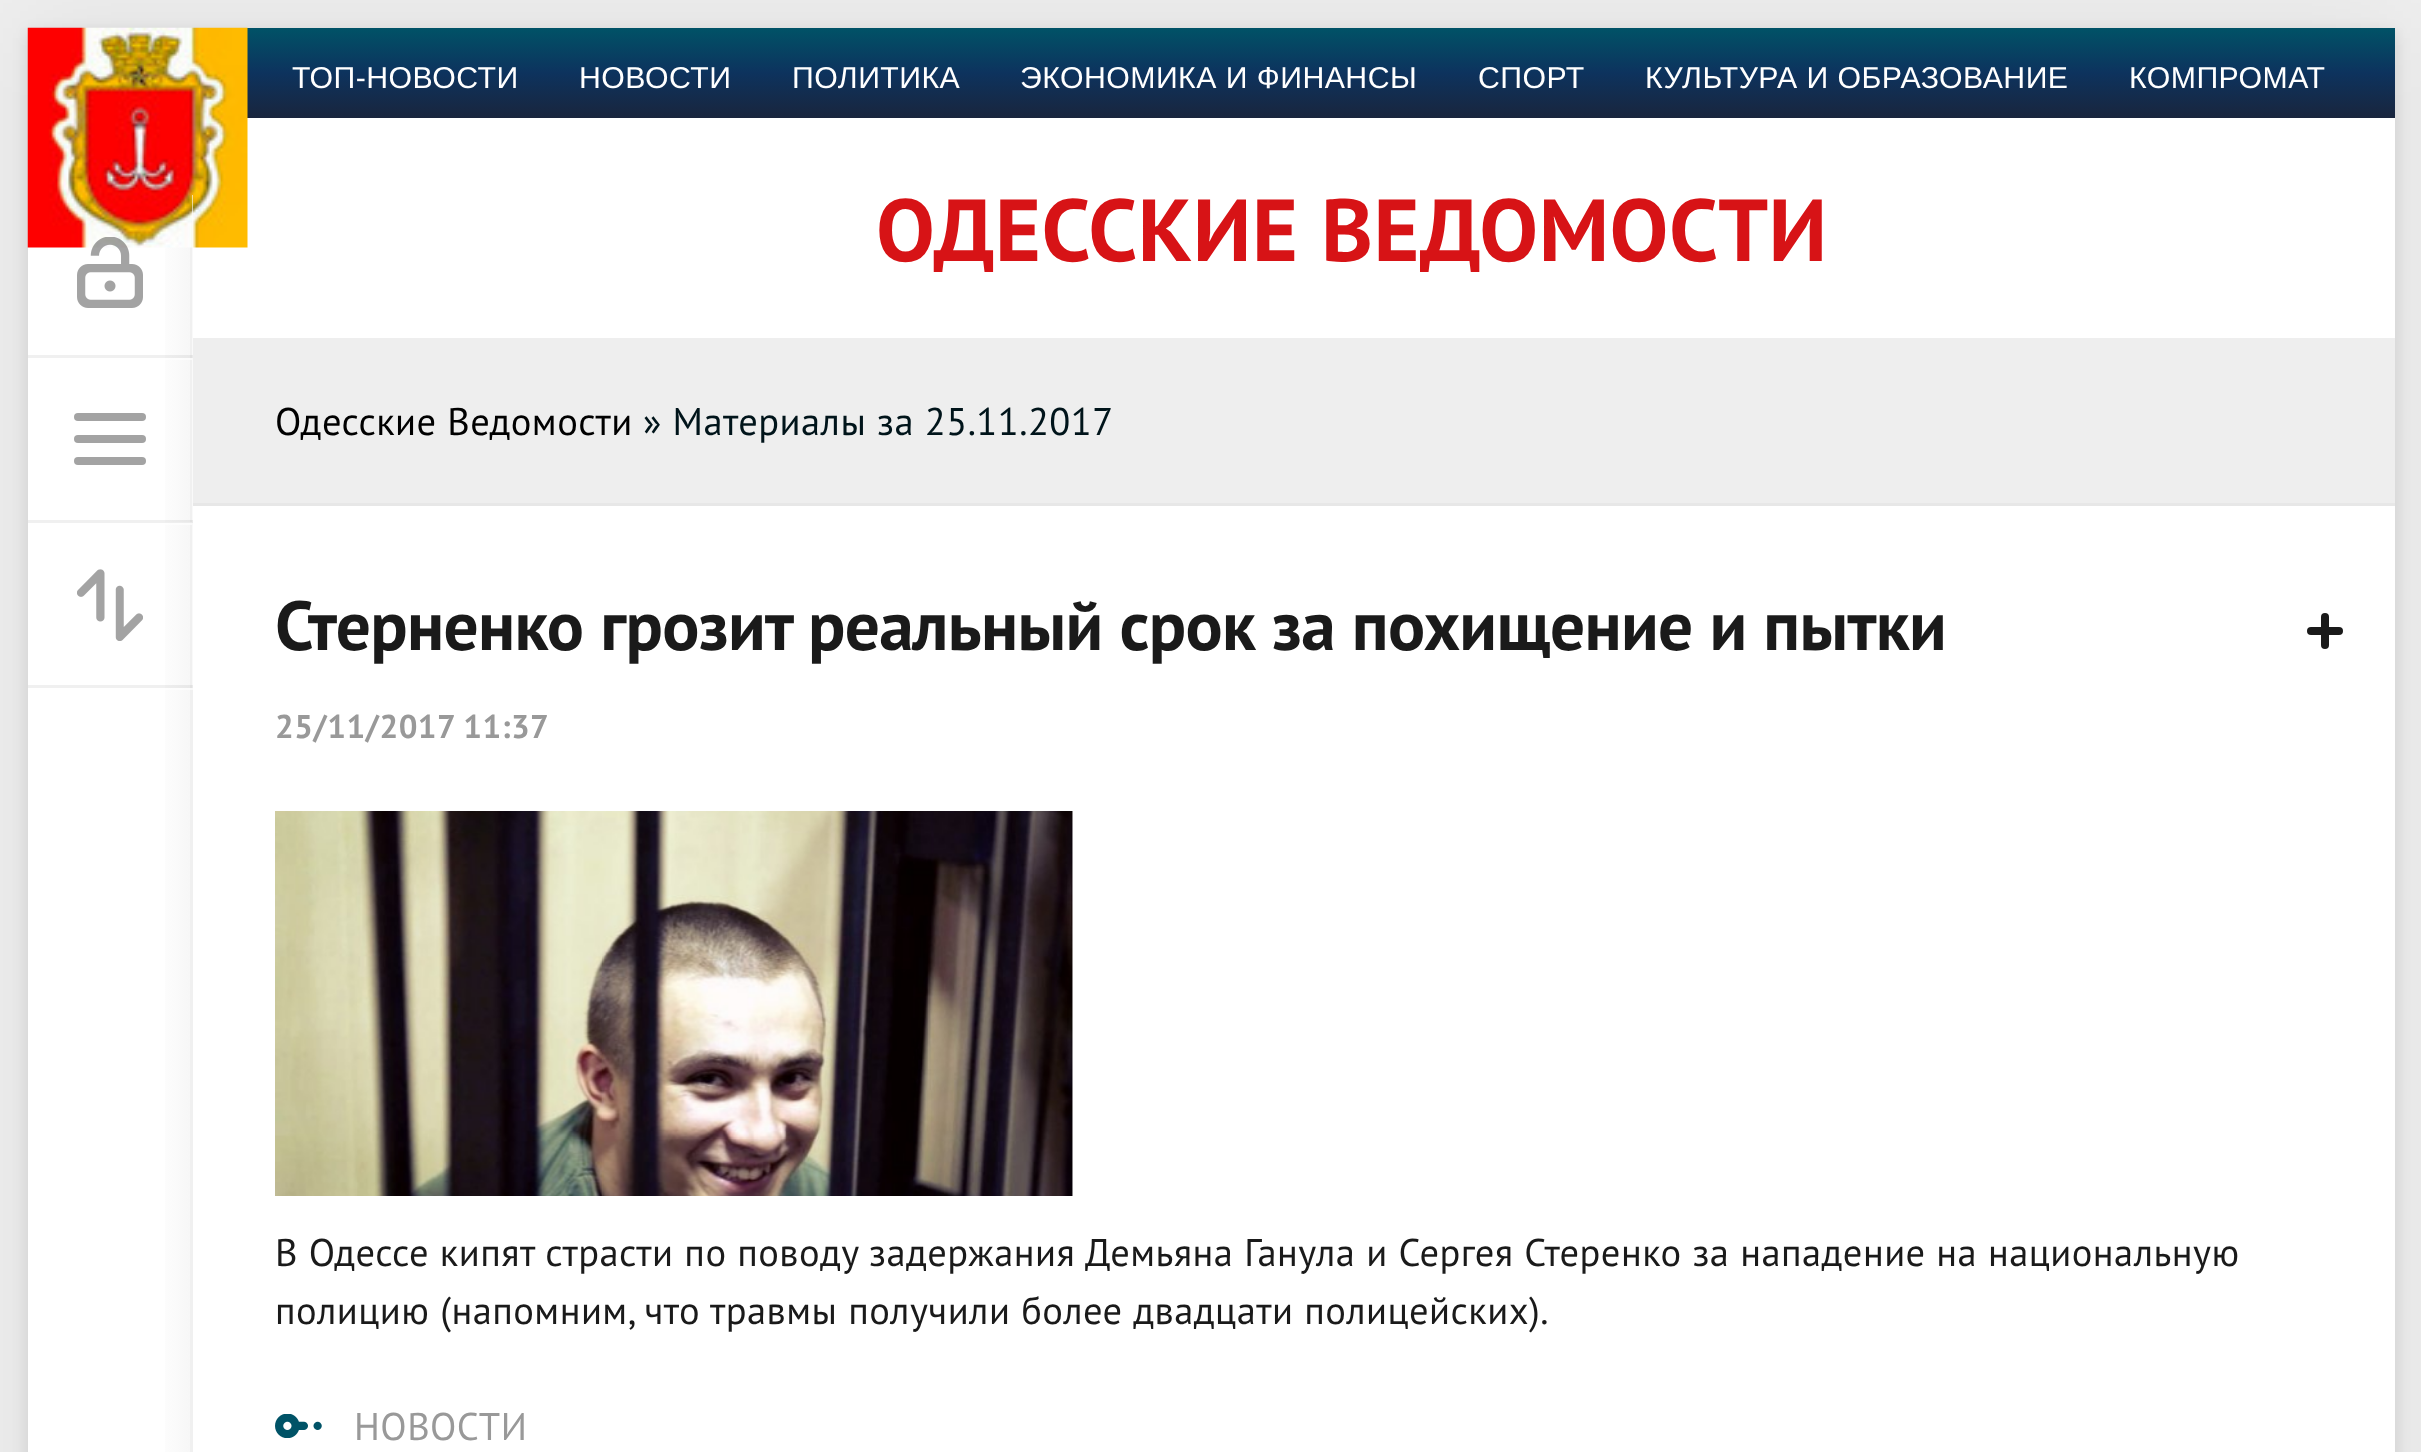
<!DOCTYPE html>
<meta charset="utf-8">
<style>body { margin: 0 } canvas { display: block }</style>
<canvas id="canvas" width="2421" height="1452"></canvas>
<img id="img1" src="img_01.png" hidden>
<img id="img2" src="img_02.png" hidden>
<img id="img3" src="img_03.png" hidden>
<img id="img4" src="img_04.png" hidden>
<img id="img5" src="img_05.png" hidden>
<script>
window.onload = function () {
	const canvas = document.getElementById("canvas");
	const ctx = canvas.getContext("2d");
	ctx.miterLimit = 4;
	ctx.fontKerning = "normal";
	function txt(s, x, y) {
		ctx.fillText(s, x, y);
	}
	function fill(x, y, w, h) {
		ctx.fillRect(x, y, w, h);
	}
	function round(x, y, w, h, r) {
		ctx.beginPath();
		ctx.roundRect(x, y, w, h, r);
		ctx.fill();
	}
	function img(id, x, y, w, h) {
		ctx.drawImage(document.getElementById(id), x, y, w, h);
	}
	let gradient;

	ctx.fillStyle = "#EEEEEE";
	fill(0, 0, 2421, 1452);
	ctx.fillStyle = "rgba(0, 0, 0, 0.06)";
	ctx.filter = "blur(48px)";
	ctx.beginPath();
	ctx.rect(28, 28, 2367, 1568);
	ctx.fill();
	ctx.filter = "none";
	ctx.fillStyle = "rgba(0, 0, 0, 0.11)";
	ctx.filter = "blur(8px)";
	ctx.beginPath();
	ctx.rect(28, 33, 2367, 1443);
	ctx.fill();
	ctx.filter = "none";
	ctx.fillStyle = "#FFFFFF";
	fill(28, 118, 2367, 1334);
	gradient = ctx.createLinearGradient(154, 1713, 190, 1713);
	gradient.addColorStop(0, "#FFFFFF");
	gradient.addColorStop(1, "#F7F7F7");
	ctx.fillStyle = gradient;
	fill(165, 247, 25, 1205);
	ctx.fillStyle = "#F0F0F0";
	fill(190, 247, 3, 1205);
	gradient = ctx.createLinearGradient(1294, 27, 1294, 118);
	gradient.addColorStop(0, "#005367");
	gradient.addColorStop(0.5, "#0D335E");
	gradient.addColorStop(1, "#19253D");
	ctx.fillStyle = gradient;
	fill(247, 28, 2148, 90);
	img("img1", 27, 27, 221, 221);
	ctx.fillStyle = "rgba(255, 255, 255, 0.6)";
	ctx.beginPath();
	ctx.moveTo(28, 358);
	ctx.lineTo(28, 360);
	ctx.lineTo(193, 360);
	ctx.lineTo(193, 195);
	ctx.lineTo(192, 195);
	ctx.lineTo(192, 358);
	ctx.closePath();
	ctx.fill();
	ctx.fillStyle = "rgba(0, 0, 0, 0.06)";
	fill(28, 355, 165, 3);
	img("img2", 77, 237, 66, 71);
	ctx.fillStyle = "rgba(255, 255, 255, 0.6)";
	ctx.beginPath();
	ctx.moveTo(28, 522);
	ctx.lineTo(28, 525);
	ctx.lineTo(193, 525);
	ctx.lineTo(193, 360);
	ctx.lineTo(192, 360);
	ctx.lineTo(192, 522);
	ctx.closePath();
	ctx.fill();
	ctx.fillStyle = "rgba(0, 0, 0, 0.06)";
	fill(28, 520, 165, 3);
	ctx.fillStyle = "#A3A3A3";
	round(74, 413, 72, 8, 4);
	round(74, 435, 72, 8, 4);
	round(74, 457, 72, 8, 4);
	ctx.fillStyle = "rgba(255, 255, 255, 0.6)";
	ctx.beginPath();
	ctx.moveTo(28, 688);
	ctx.lineTo(28, 690);
	ctx.lineTo(193, 690);
	ctx.lineTo(193, 525);
	ctx.lineTo(192, 525);
	ctx.lineTo(192, 688);
	ctx.closePath();
	ctx.fill();
	ctx.fillStyle = "rgba(0, 0, 0, 0.06)";
	fill(28, 685, 165, 3);
	img("img3", 77, 569, 66, 72);
	ctx.fillStyle = "#EEEEEE";
	fill(193, 338, 2202, 165);
	ctx.fillStyle = "#E7E7E7";
	fill(193, 503, 2202, 3);
	ctx.fillStyle = "#1A1A1A";
	round(2307, 627, 36, 8, 4);
	round(2321, 613, 8, 36, 4);
	img("img4", 275, 811, 798, 385);
	img("img5", 275, 1414, 47, 24);
	ctx.letterSpacing = "0.46px";
	ctx.font = "30.25px Liberation Sans";
	ctx.fillStyle = "#FFFFFF";
	txt("ТОП-НОВОСТИ", 292, 88);
	txt("НОВОСТИ", 579, 88);
	txt("ПОЛИТИКА", 792, 88);
	txt("ЭКОНОМИКА И ФИНАНСЫ", 1020, 88);
	txt("СПОРТ", 1478, 88);
	txt("КУЛЬТУРА И ОБРАЗОВАНИЕ", 1645, 88);
	txt("КОМПРОМАТ", 2129, 88);
	ctx.font = "bold 88px PT Sans";
	ctx.fillStyle = "#D71316";
	txt("ОДЕССКИЕ ВЕДОМОСТИ", 876, 261);
	ctx.font = "38.5px PT Sans";
	ctx.fillStyle = "#000000";
	txt("Одесские Ведомости", 275, 435);
	ctx.fillStyle = "#00141A";
	txt("» Материалы за 25.11.2017", 643, 435);
	ctx.letterSpacing = "-0.7px";
	ctx.font = "bold 69.3px PT Sans";
	ctx.fillStyle = "#1A1A1A";
	txt("Стерненко грозит реальный срок за похищение и пытки", 275, 650);
	ctx.letterSpacing = "0.46px";
	ctx.font = "bold 33px PT Sans";
	ctx.fillStyle = "#999999";
	txt("25/11/2017 11:37", 275, 738);
	ctx.font = "38.5px PT Sans";
	ctx.fillStyle = "#1A1A1A";
	txt("В Одессе кипят страсти по поводу задержания Демьяна Ганула и Сергея Стеренко за нападение на национальную", 275, 1266);
	txt("полицию (напомним, что травмы получили более двадцати полицейских).", 275, 1324);
	ctx.fillStyle = "#999999";
	txt("НОВОСТИ", 354, 1440);
};
</script>
